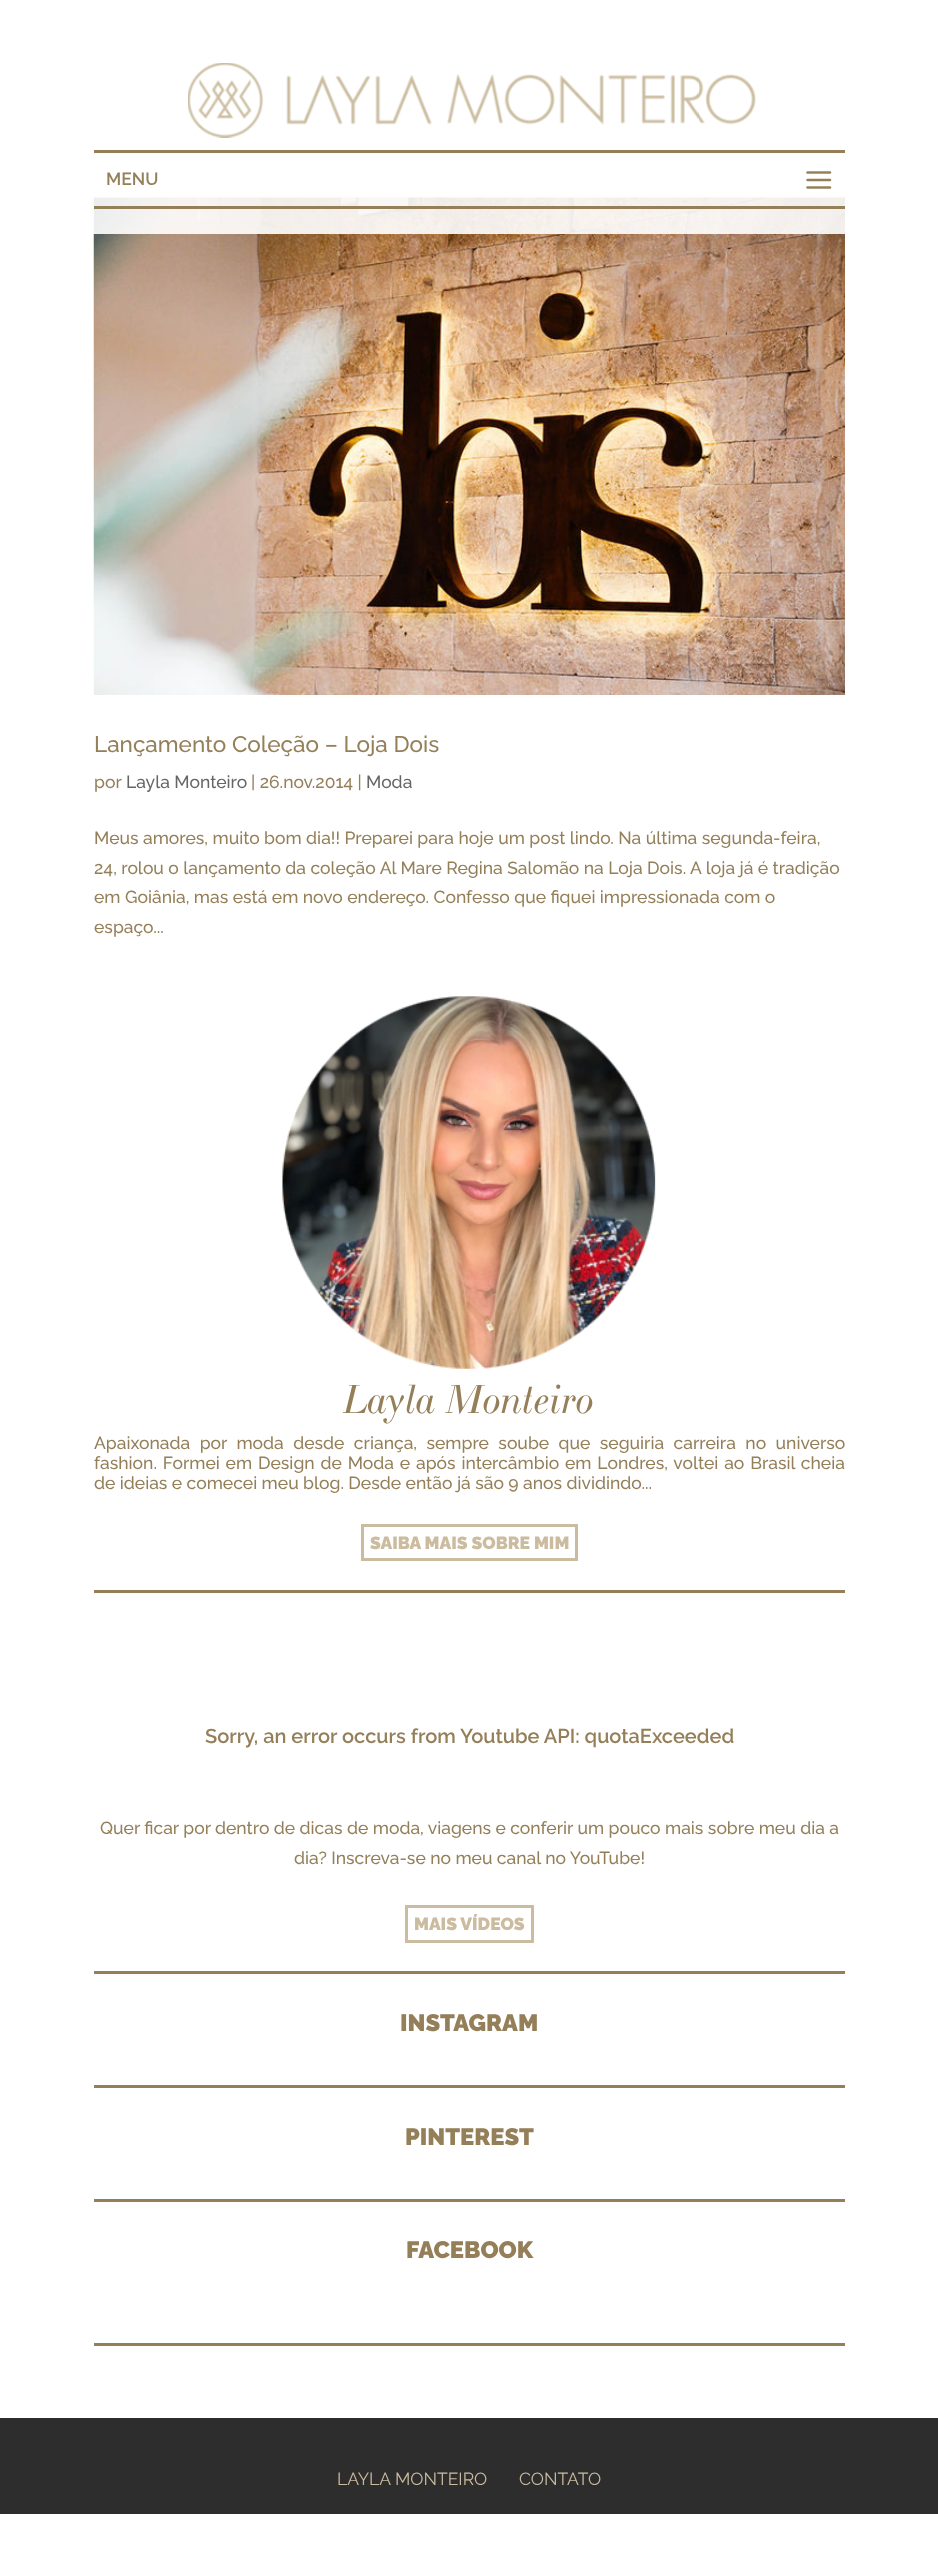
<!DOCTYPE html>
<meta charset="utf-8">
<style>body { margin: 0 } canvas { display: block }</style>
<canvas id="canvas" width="938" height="2570"></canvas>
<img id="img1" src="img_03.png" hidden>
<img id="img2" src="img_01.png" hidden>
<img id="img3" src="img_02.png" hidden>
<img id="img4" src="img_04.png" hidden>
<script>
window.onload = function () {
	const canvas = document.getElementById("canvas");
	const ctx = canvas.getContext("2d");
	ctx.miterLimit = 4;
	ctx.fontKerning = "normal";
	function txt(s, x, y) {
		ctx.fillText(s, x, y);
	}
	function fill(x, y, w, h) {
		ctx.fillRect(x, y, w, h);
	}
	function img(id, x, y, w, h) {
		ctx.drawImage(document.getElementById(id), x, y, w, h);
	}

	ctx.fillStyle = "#FFFFFF";
	fill(0, 0, 938, 2570);
	img("img1", 93, 197, 752, 498);
	ctx.fillStyle = "rgba(255, 255, 255, 0.9)";
	fill(93, 197, 752, 37);
	img("img2", 188, 63, 568, 75);
	ctx.fillStyle = "#947F59";
	fill(94, 150, 751, 3);
	fill(94, 206, 751, 3);
	img("img3", 806, 171, 26, 18);
	fill(94, 1590, 751, 3);
	img("img4", 282, 996, 374, 373);
	ctx.strokeStyle = "#CBBB9F";
	ctx.lineWidth = 3;
	ctx.strokeRect(362.5, 1525.5, 214, 34);
	fill(94, 1971, 751, 3);
	ctx.strokeRect(406.5, 1906.5, 126, 35);
	fill(94, 2085, 751, 3);
	fill(94, 2199, 751, 3);
	fill(94, 2343, 751, 3);
	ctx.fillStyle = "#2D2D2D";
	fill(0, 2418, 938, 96);
	ctx.font = "600 17.5px Raleway";
	ctx.fillStyle = "#947F59";
	txt("MENU", 106, 185);
	ctx.font = "500 22.5px Raleway";
	txt("Lançamento Coleção – Loja Dois", 94, 752);
	ctx.font = "500 17.5px Raleway";
	txt("por", 94, 788);
	ctx.fillStyle = "#666666";
	txt("Layla Monteiro", 126, 788);
	ctx.fillStyle = "#947F59";
	txt("| 26.nov.2014 |", 251, 788);
	ctx.fillStyle = "#666666";
	txt("Moda", 366, 788);
	ctx.fillStyle = "#947F59";
	txt("Meus amores, muito bom dia!! Preparei para hoje um post lindo. Na última segunda-feira,", 94, 844);
	txt("24, rolou o lançamento da coleção Al Mare Regina Salomão na Loja Dois. A loja já é tradição", 94, 874);
	txt("em Goiânia, mas está em novo endereço. Confesso que fiquei impressionada com o", 94, 903);
	txt("espaço...", 94, 933);
	ctx.font = "italic 40px 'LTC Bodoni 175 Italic'";
	txt("Layla Monteiro", 344, 1413);
	ctx.wordSpacing = "5px";
	ctx.font = "500 17.5px Raleway";
	txt("Apaixonada por moda desde criança, sempre soube que seguiria carreira no universo", 94, 1449);
	ctx.wordSpacing = "1.4px";
	txt("fashion. Formei em Design de Moda e após intercâmbio em Londres, voltei ao Brasil cheia", 94, 1469);
	ctx.wordSpacing = "0px";
	txt("de ideias e comecei meu blog. Desde então já são 9 anos dividindo...", 94, 1489);
	ctx.font = "900 17.5px Raleway";
	ctx.fillStyle = "#CBBB9F";
	txt("SAIBA MAIS SOBRE MIM", 370, 1549);
	ctx.font = "600 20px Raleway";
	ctx.fillStyle = "#947F59";
	txt("Sorry, an error occurs from Youtube API: quotaExceeded", 205, 1743);
	ctx.font = "500 17.5px Raleway";
	txt("Quer ficar por dentro de dicas de moda, viagens e conferir um pouco mais sobre meu dia a", 100, 1834);
	txt("dia? Inscreva-se no meu canal no YouTube!", 294, 1864);
	ctx.font = "900 17.5px Raleway";
	ctx.fillStyle = "#CBBB9F";
	txt("MAIS VÍDEOS", 414, 1930);
	ctx.font = "900 23.75px Raleway";
	ctx.fillStyle = "#947F59";
	txt("INSTAGRAM", 400, 2031);
	txt("PINTEREST", 405, 2145);
	txt("FACEBOOK", 406, 2258);
	ctx.font = "17.5px Raleway";
	ctx.fillStyle = "#CBBB9F";
	txt("LAYLA MONTEIRO", 337, 2485);
	txt("CONTATO", 519, 2485);
};
</script>
